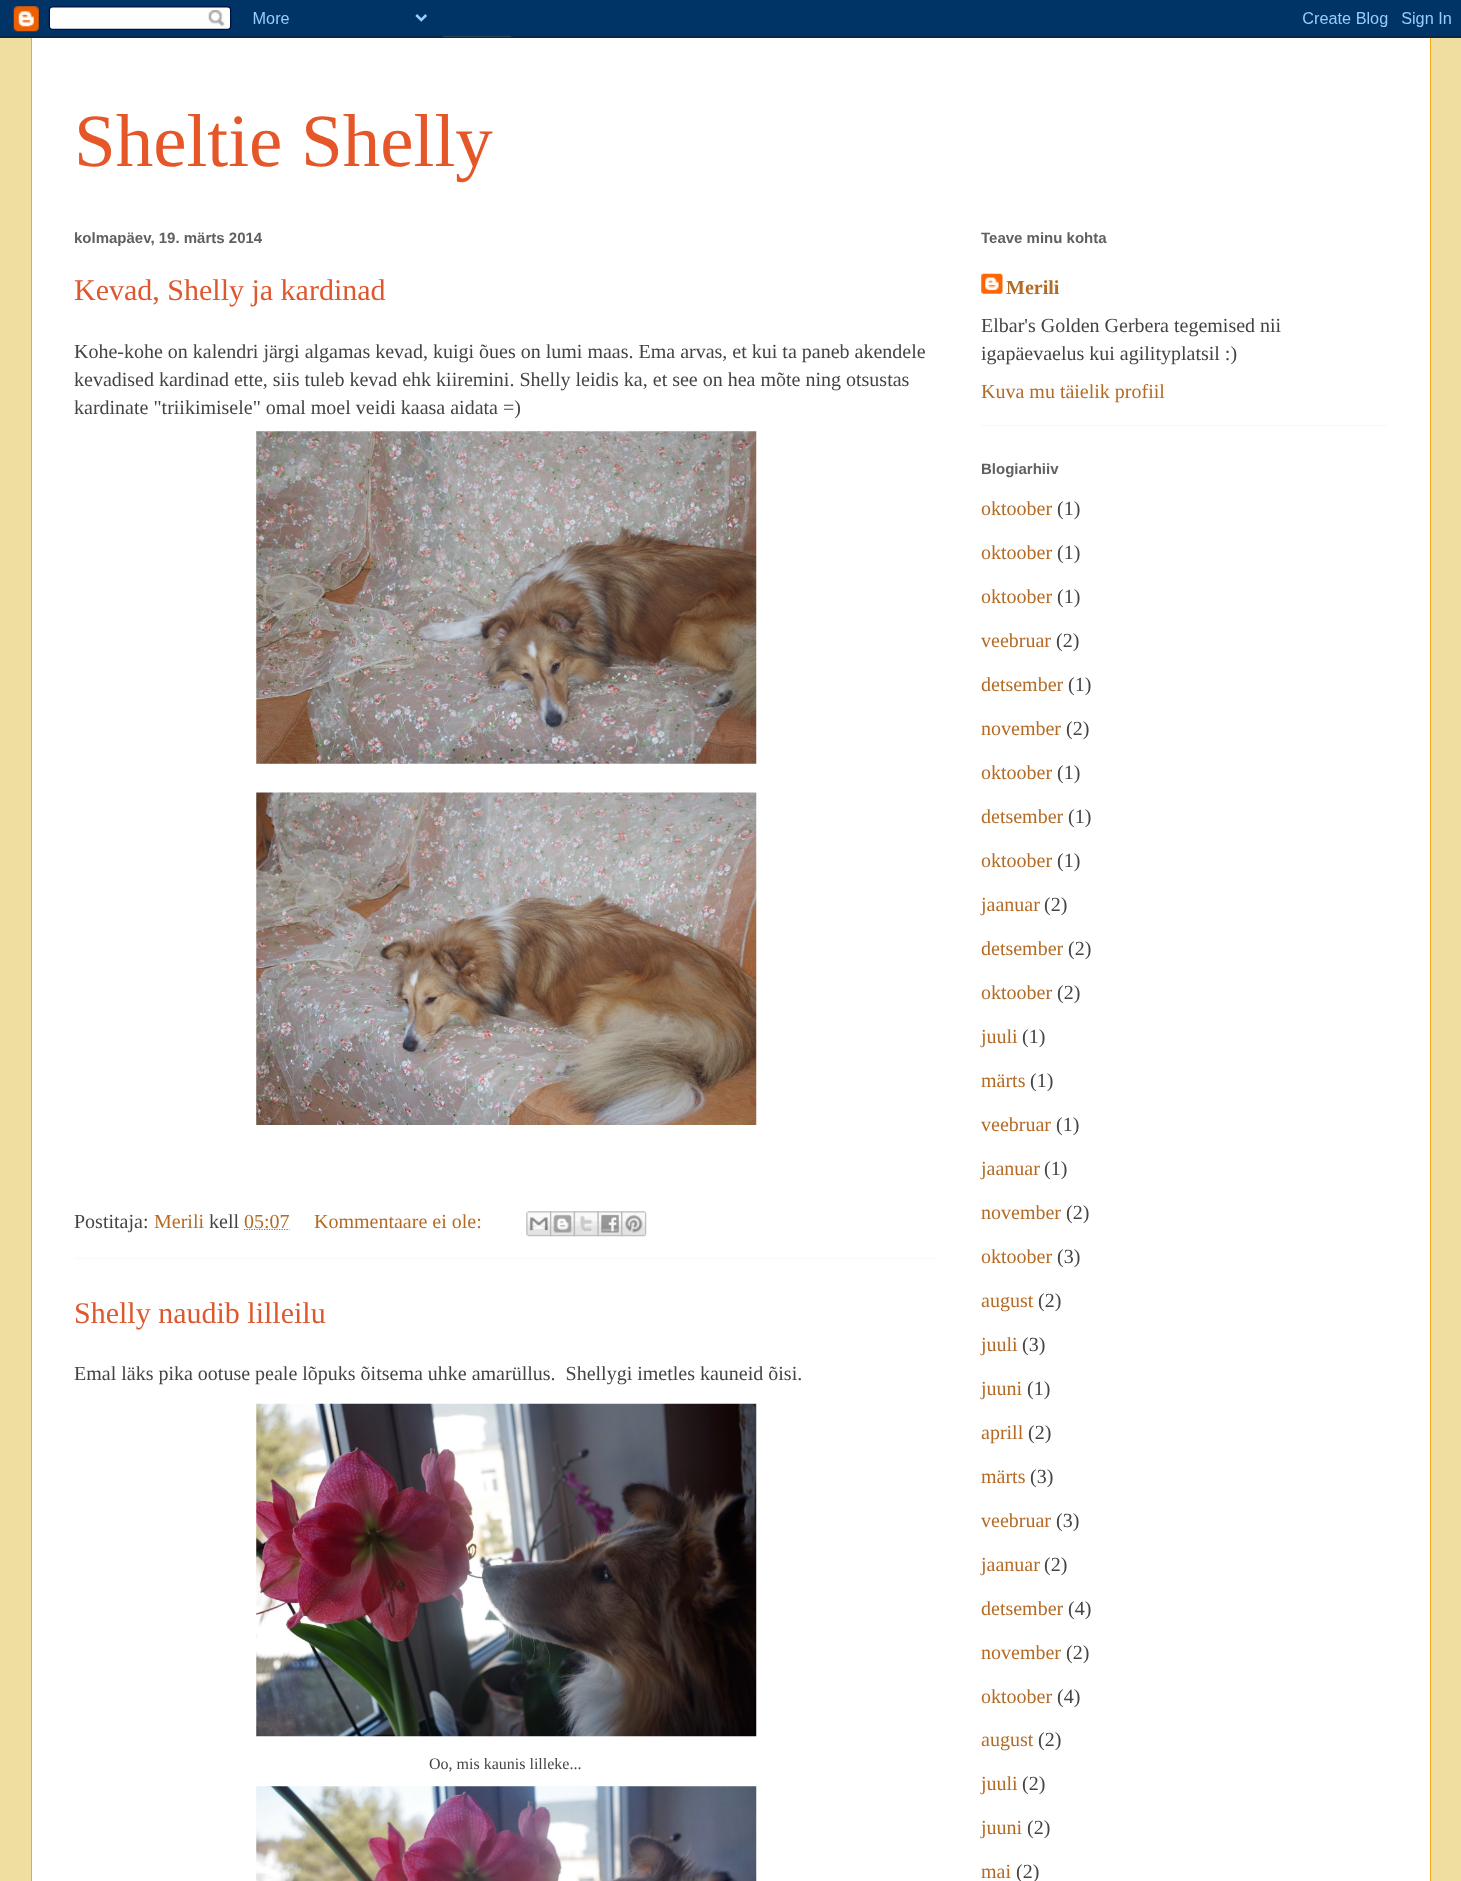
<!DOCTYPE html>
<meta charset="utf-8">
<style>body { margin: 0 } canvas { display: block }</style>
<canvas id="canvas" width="1461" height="1881"></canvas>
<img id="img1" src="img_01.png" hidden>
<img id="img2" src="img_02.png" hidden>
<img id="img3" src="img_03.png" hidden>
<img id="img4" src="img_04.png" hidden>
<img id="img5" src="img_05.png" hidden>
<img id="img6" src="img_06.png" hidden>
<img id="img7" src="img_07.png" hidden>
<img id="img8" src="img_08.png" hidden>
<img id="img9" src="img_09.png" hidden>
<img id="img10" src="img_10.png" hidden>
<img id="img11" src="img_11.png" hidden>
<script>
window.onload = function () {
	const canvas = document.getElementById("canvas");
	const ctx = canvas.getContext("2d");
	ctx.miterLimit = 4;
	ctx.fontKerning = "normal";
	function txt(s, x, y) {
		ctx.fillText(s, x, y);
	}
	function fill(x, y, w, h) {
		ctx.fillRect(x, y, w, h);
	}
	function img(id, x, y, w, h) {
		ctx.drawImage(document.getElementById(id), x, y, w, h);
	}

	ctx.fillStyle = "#F0DEA0";
	fill(0, 0, 1461, 1881);
	img("img1", 0, 0, 1461, 38);
	ctx.fillStyle = "#FFFFFF";
	fill(32, 38, 1398, 1843);
	ctx.fillStyle = "#F6A91A";
	fill(1430, 38, 1, 1843);
	fill(31, 38, 1, 1843);
	ctx.fillStyle = "#F8F8F8";
	fill(75, 1258, 863, 1);
	img("img2", 256, 431, 501, 333);
	img("img3", 256, 792, 501, 333);
	ctx.beginPath();
	ctx.moveTo(244, 1229.5);
	ctx.lineTo(289.5, 1229.5);
	ctx.strokeStyle = "#B46B25";
	ctx.lineWidth = 1.2;
	ctx.setLineDash([1.25, 1.25]);
	ctx.stroke();
	img("img4", 526, 1211, 26, 26);
	img("img5", 550, 1211, 25, 26);
	img("img6", 573, 1211, 26, 26);
	img("img7", 597, 1211, 26, 26);
	img("img8", 621, 1211, 26, 26);
	img("img9", 256, 1403, 501, 334);
	img("img10", 256, 1786, 501, 95);
	fill(981, 425, 407, 1);
	img("img11", 981, 273, 22, 21);
	ctx.font = "75px Liberation Serif";
	ctx.fillStyle = "#E55728";
	txt("Sheltie Shelly", 74, 166);
	ctx.font = "bold 15px Liberation Sans";
	ctx.fillStyle = "#606060";
	txt("kolmapäev, 19. märts 2014", 74, 243);
	ctx.font = "30px Liberation Serif";
	ctx.fillStyle = "#DD582E";
	txt("Kevad, Shelly ja kardinad", 74, 300);
	ctx.font = "20px Liberation Serif";
	ctx.fillStyle = "#444444";
	txt("Kohe-kohe on kalendri järgi algamas kevad, kuigi õues on lumi maas. Ema arvas, et kui ta paneb akendele", 74, 358);
	txt("kevadised kardinad ette, siis tuleb kevad ehk kiiremini. Shelly leidis ka, et see on hea mõte ning otsustas", 74, 386);
	txt("kardinate \"triikimisele\" omal moel veidi kaasa aidata =)", 74, 414);
	txt("Postitaja:", 74, 1228);
	ctx.fillStyle = "#B46B25";
	txt("Merili", 154, 1228);
	ctx.fillStyle = "#444444";
	txt("kell", 209, 1228);
	ctx.fillStyle = "#B46B25";
	txt("05:07", 244, 1228);
	txt("Kommentaare ei ole:", 314, 1228);
	ctx.font = "30px Liberation Serif";
	ctx.fillStyle = "#DD582E";
	txt("Shelly naudib lilleilu", 74, 1323);
	ctx.font = "20px Liberation Serif";
	ctx.fillStyle = "#444444";
	txt("Emal läks pika ootuse peale lõpuks õitsema uhke amarüllus.  Shellygi imetles kauneid õisi.", 74, 1380);
	ctx.font = "16px Liberation Serif";
	txt("Oo, mis kaunis lilleke...", 429, 1769);
	ctx.font = "bold 15px Liberation Sans";
	ctx.fillStyle = "#606060";
	txt("Teave minu kohta", 981, 243);
	ctx.font = "bold 20px Liberation Serif";
	ctx.fillStyle = "#B46B25";
	txt("Merili", 1006, 294);
	ctx.font = "20px Liberation Serif";
	ctx.fillStyle = "#444444";
	txt("Elbar's Golden Gerbera tegemised nii", 981, 332);
	txt("igapäevaelus kui agilityplatsil :)", 981, 360);
	ctx.fillStyle = "#B46B25";
	txt("Kuva mu täielik profiil", 981, 398);
	ctx.font = "bold 15px Liberation Sans";
	ctx.fillStyle = "#606060";
	txt("Blogiarhiiv", 981, 474);
	ctx.font = "20px Liberation Serif";
	ctx.fillStyle = "#B46B25";
	txt("oktoober", 981, 515);
	ctx.fillStyle = "#444444";
	txt("(1)", 1057, 515);
	ctx.fillStyle = "#B46B25";
	txt("oktoober", 981, 559);
	ctx.fillStyle = "#444444";
	txt("(1)", 1057, 559);
	ctx.fillStyle = "#B46B25";
	txt("oktoober", 981, 603);
	ctx.fillStyle = "#444444";
	txt("(1)", 1057, 603);
	ctx.fillStyle = "#B46B25";
	txt("veebruar", 981, 647);
	ctx.fillStyle = "#444444";
	txt("(2)", 1056, 647);
	ctx.fillStyle = "#B46B25";
	txt("detsember", 981, 691);
	ctx.fillStyle = "#444444";
	txt("(1)", 1068, 691);
	ctx.fillStyle = "#B46B25";
	txt("november", 981, 735);
	ctx.fillStyle = "#444444";
	txt("(2)", 1066, 735);
	ctx.fillStyle = "#B46B25";
	txt("oktoober", 981, 779);
	ctx.fillStyle = "#444444";
	txt("(1)", 1057, 779);
	ctx.fillStyle = "#B46B25";
	txt("detsember", 981, 823);
	ctx.fillStyle = "#444444";
	txt("(1)", 1068, 823);
	ctx.fillStyle = "#B46B25";
	txt("oktoober", 981, 867);
	ctx.fillStyle = "#444444";
	txt("(1)", 1057, 867);
	ctx.fillStyle = "#B46B25";
	txt("jaanuar", 981, 911);
	ctx.fillStyle = "#444444";
	txt("(2)", 1044, 911);
	ctx.fillStyle = "#B46B25";
	txt("detsember", 981, 955);
	ctx.fillStyle = "#444444";
	txt("(2)", 1068, 955);
	ctx.fillStyle = "#B46B25";
	txt("oktoober", 981, 999);
	ctx.fillStyle = "#444444";
	txt("(2)", 1057, 999);
	ctx.fillStyle = "#B46B25";
	txt("juuli", 981, 1043);
	ctx.fillStyle = "#444444";
	txt("(1)", 1022, 1043);
	ctx.fillStyle = "#B46B25";
	txt("märts", 981, 1087);
	ctx.fillStyle = "#444444";
	txt("(1)", 1030, 1087);
	ctx.fillStyle = "#B46B25";
	txt("veebruar", 981, 1131);
	ctx.fillStyle = "#444444";
	txt("(1)", 1056, 1131);
	ctx.fillStyle = "#B46B25";
	txt("jaanuar", 981, 1175);
	ctx.fillStyle = "#444444";
	txt("(1)", 1044, 1175);
	ctx.fillStyle = "#B46B25";
	txt("november", 981, 1219);
	ctx.fillStyle = "#444444";
	txt("(2)", 1066, 1219);
	ctx.fillStyle = "#B46B25";
	txt("oktoober", 981, 1263);
	ctx.fillStyle = "#444444";
	txt("(3)", 1057, 1263);
	ctx.fillStyle = "#B46B25";
	txt("august", 981, 1307);
	ctx.fillStyle = "#444444";
	txt("(2)", 1038, 1307);
	ctx.fillStyle = "#B46B25";
	txt("juuli", 981, 1351);
	ctx.fillStyle = "#444444";
	txt("(3)", 1022, 1351);
	ctx.fillStyle = "#B46B25";
	txt("juuni", 981, 1395);
	ctx.fillStyle = "#444444";
	txt("(1)", 1027, 1395);
	ctx.fillStyle = "#B46B25";
	txt("aprill", 981, 1439);
	ctx.fillStyle = "#444444";
	txt("(2)", 1028, 1439);
	ctx.fillStyle = "#B46B25";
	txt("märts", 981, 1483);
	ctx.fillStyle = "#444444";
	txt("(3)", 1030, 1483);
	ctx.fillStyle = "#B46B25";
	txt("veebruar", 981, 1527);
	ctx.fillStyle = "#444444";
	txt("(3)", 1056, 1527);
	ctx.fillStyle = "#B46B25";
	txt("jaanuar", 981, 1571);
	ctx.fillStyle = "#444444";
	txt("(2)", 1044, 1571);
	ctx.fillStyle = "#B46B25";
	txt("detsember", 981, 1615);
	ctx.fillStyle = "#444444";
	txt("(4)", 1068, 1615);
	ctx.fillStyle = "#B46B25";
	txt("november", 981, 1659);
	ctx.fillStyle = "#444444";
	txt("(2)", 1066, 1659);
	ctx.fillStyle = "#B46B25";
	txt("oktoober", 981, 1703);
	ctx.fillStyle = "#444444";
	txt("(4)", 1057, 1703);
	ctx.fillStyle = "#B46B25";
	txt("august", 981, 1746);
	ctx.fillStyle = "#444444";
	txt("(2)", 1038, 1746);
	ctx.fillStyle = "#B46B25";
	txt("juuli", 981, 1790);
	ctx.fillStyle = "#444444";
	txt("(2)", 1022, 1790);
	ctx.fillStyle = "#B46B25";
	txt("juuni", 981, 1834);
	ctx.fillStyle = "#444444";
	txt("(2)", 1027, 1834);
	ctx.fillStyle = "#B46B25";
	txt("mai", 981, 1878);
	ctx.fillStyle = "#444444";
	txt("(2)", 1016, 1878);
};
</script>
